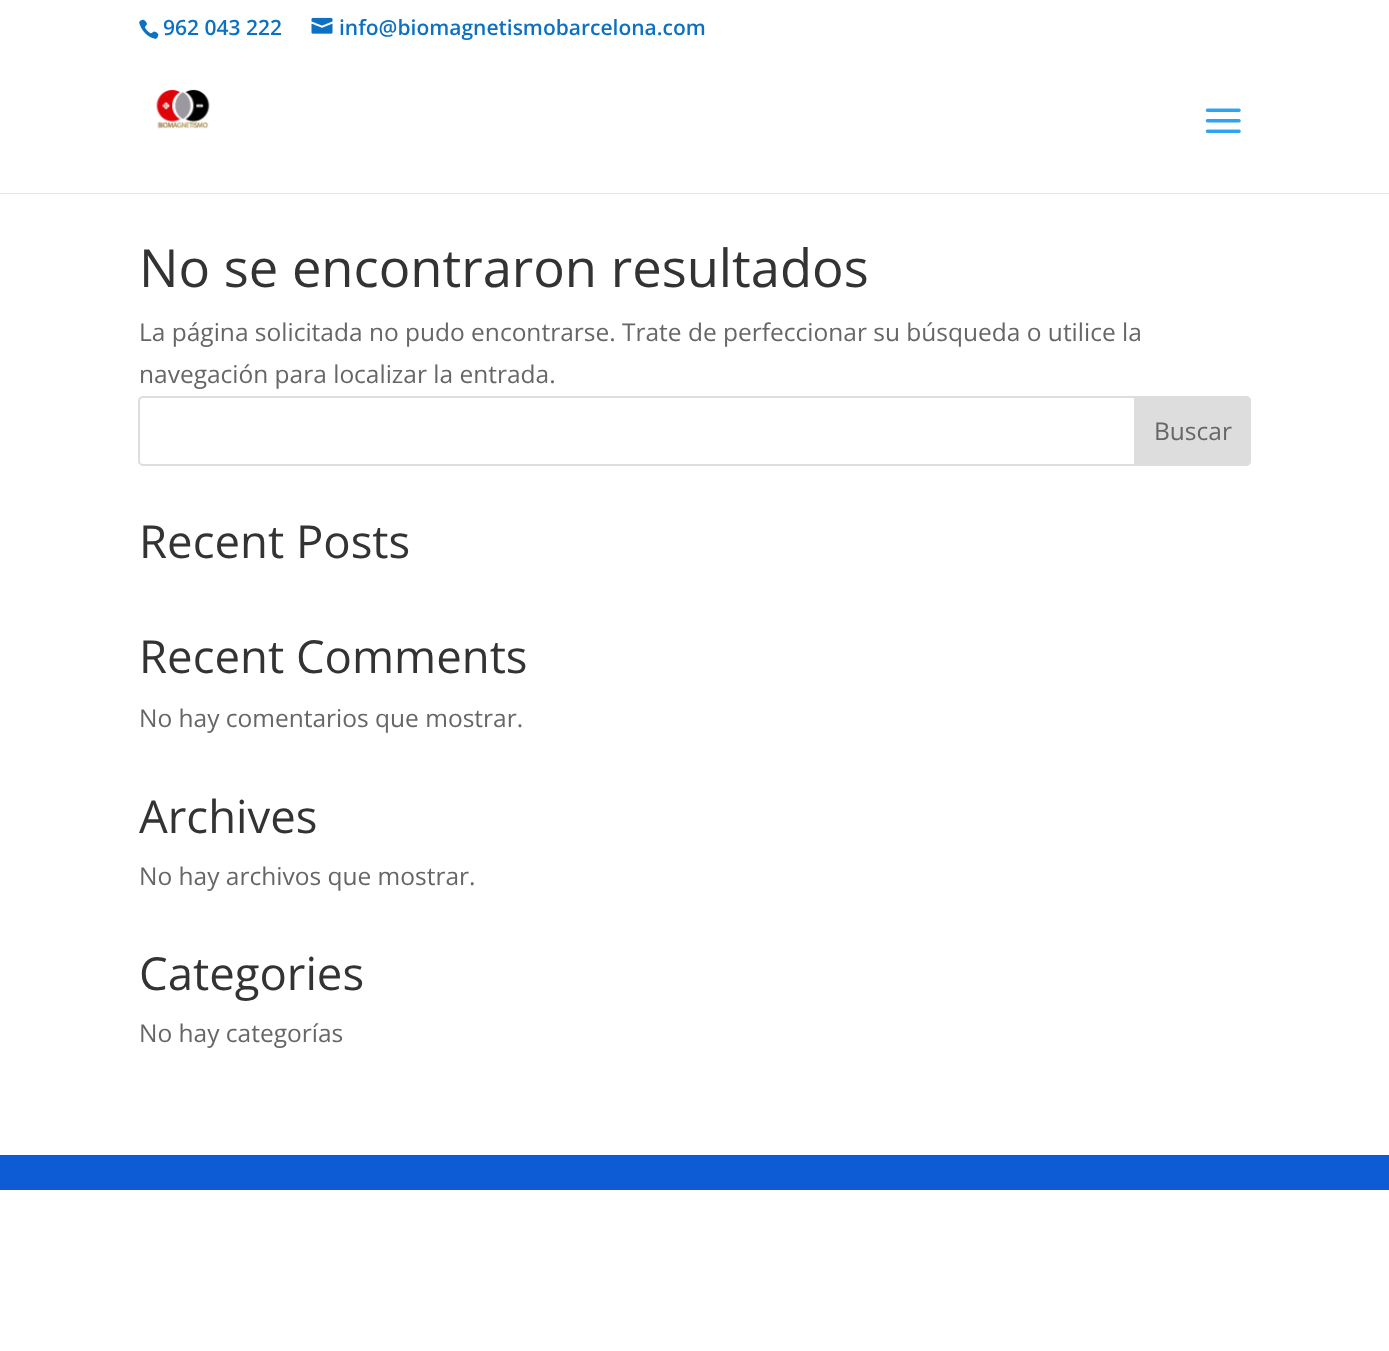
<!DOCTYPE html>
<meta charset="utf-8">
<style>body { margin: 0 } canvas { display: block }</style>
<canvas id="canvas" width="1389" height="1351"></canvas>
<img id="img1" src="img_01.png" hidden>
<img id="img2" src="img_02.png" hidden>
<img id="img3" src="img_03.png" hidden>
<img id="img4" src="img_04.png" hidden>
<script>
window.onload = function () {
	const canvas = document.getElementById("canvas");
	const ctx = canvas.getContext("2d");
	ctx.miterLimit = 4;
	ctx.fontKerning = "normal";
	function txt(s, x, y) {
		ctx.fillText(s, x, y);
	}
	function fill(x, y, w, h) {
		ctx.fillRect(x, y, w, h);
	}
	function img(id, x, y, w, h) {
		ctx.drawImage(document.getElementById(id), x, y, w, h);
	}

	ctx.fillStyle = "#FFFFFF";
	fill(0, 0, 1389, 1351);
	img("img1", 139, 19, 20, 20);
	img("img2", 311, 17, 22, 17);
	ctx.fillStyle = "#E6E6E6";
	ctx.beginPath();
	ctx.moveTo(0, 192);
	ctx.lineTo(0, 194);
	ctx.lineTo(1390, 194);
	ctx.lineTo(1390, 54);
	ctx.lineTo(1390, 192);
	ctx.closePath();
	ctx.fill();
	ctx.fillStyle = "#FFFFFF";
	fill(0, 192, 1389, 1);
	img("img3", 156, 89, 54, 40);
	img("img4", 1205, 108, 36, 25);
	ctx.beginPath();
	ctx.roundRect(139, 397, 1111, 68, 4);
	ctx.strokeStyle = "#DDDDDD";
	ctx.lineWidth = 2;
	ctx.stroke();
	ctx.fillStyle = "#DDDDDD";
	ctx.beginPath();
	ctx.roundRect(1135, 397, 115, 68, [0, 4, 4, 0]);
	ctx.fill();
	ctx.stroke();
	ctx.fillStyle = "#0E5CD5";
	fill(0, 1155, 1389, 35);
	ctx.font = "600 21px Open Sans";
	ctx.fillStyle = "#0C71C3";
	txt("962 043 222", 163, 35);
	txt("info@biomagnetismobarcelona.com", 339, 35);
	ctx.font = "52.5px Open Sans";
	ctx.fillStyle = "#333333";
	txt("No se encontraron resultados", 139, 287);
	ctx.font = "24.5px Open Sans";
	ctx.fillStyle = "#666666";
	txt("La página solicitada no pudo encontrarse. Trate de perfeccionar su búsqueda o utilice la", 139, 341);
	txt("navegación para localizar la entrada.", 139, 383);
	txt("Buscar", 1154, 440);
	ctx.font = "45.5px Open Sans";
	ctx.fillStyle = "#333333";
	txt("Recent Posts", 139, 558);
	txt("Recent Comments", 139, 673);
	ctx.font = "24.5px Open Sans";
	ctx.fillStyle = "#666666";
	txt("No hay comentarios que mostrar.", 139, 727);
	ctx.font = "45.5px Open Sans";
	ctx.fillStyle = "#333333";
	txt("Archives", 139, 833);
	ctx.font = "24.5px Open Sans";
	ctx.fillStyle = "#666666";
	txt("No hay archivos que mostrar.", 139, 885);
	ctx.font = "45.5px Open Sans";
	ctx.fillStyle = "#333333";
	txt("Categories", 139, 990);
	ctx.font = "24.5px Open Sans";
	ctx.fillStyle = "#666666";
	txt("No hay categorías", 139, 1042);
};
</script>
